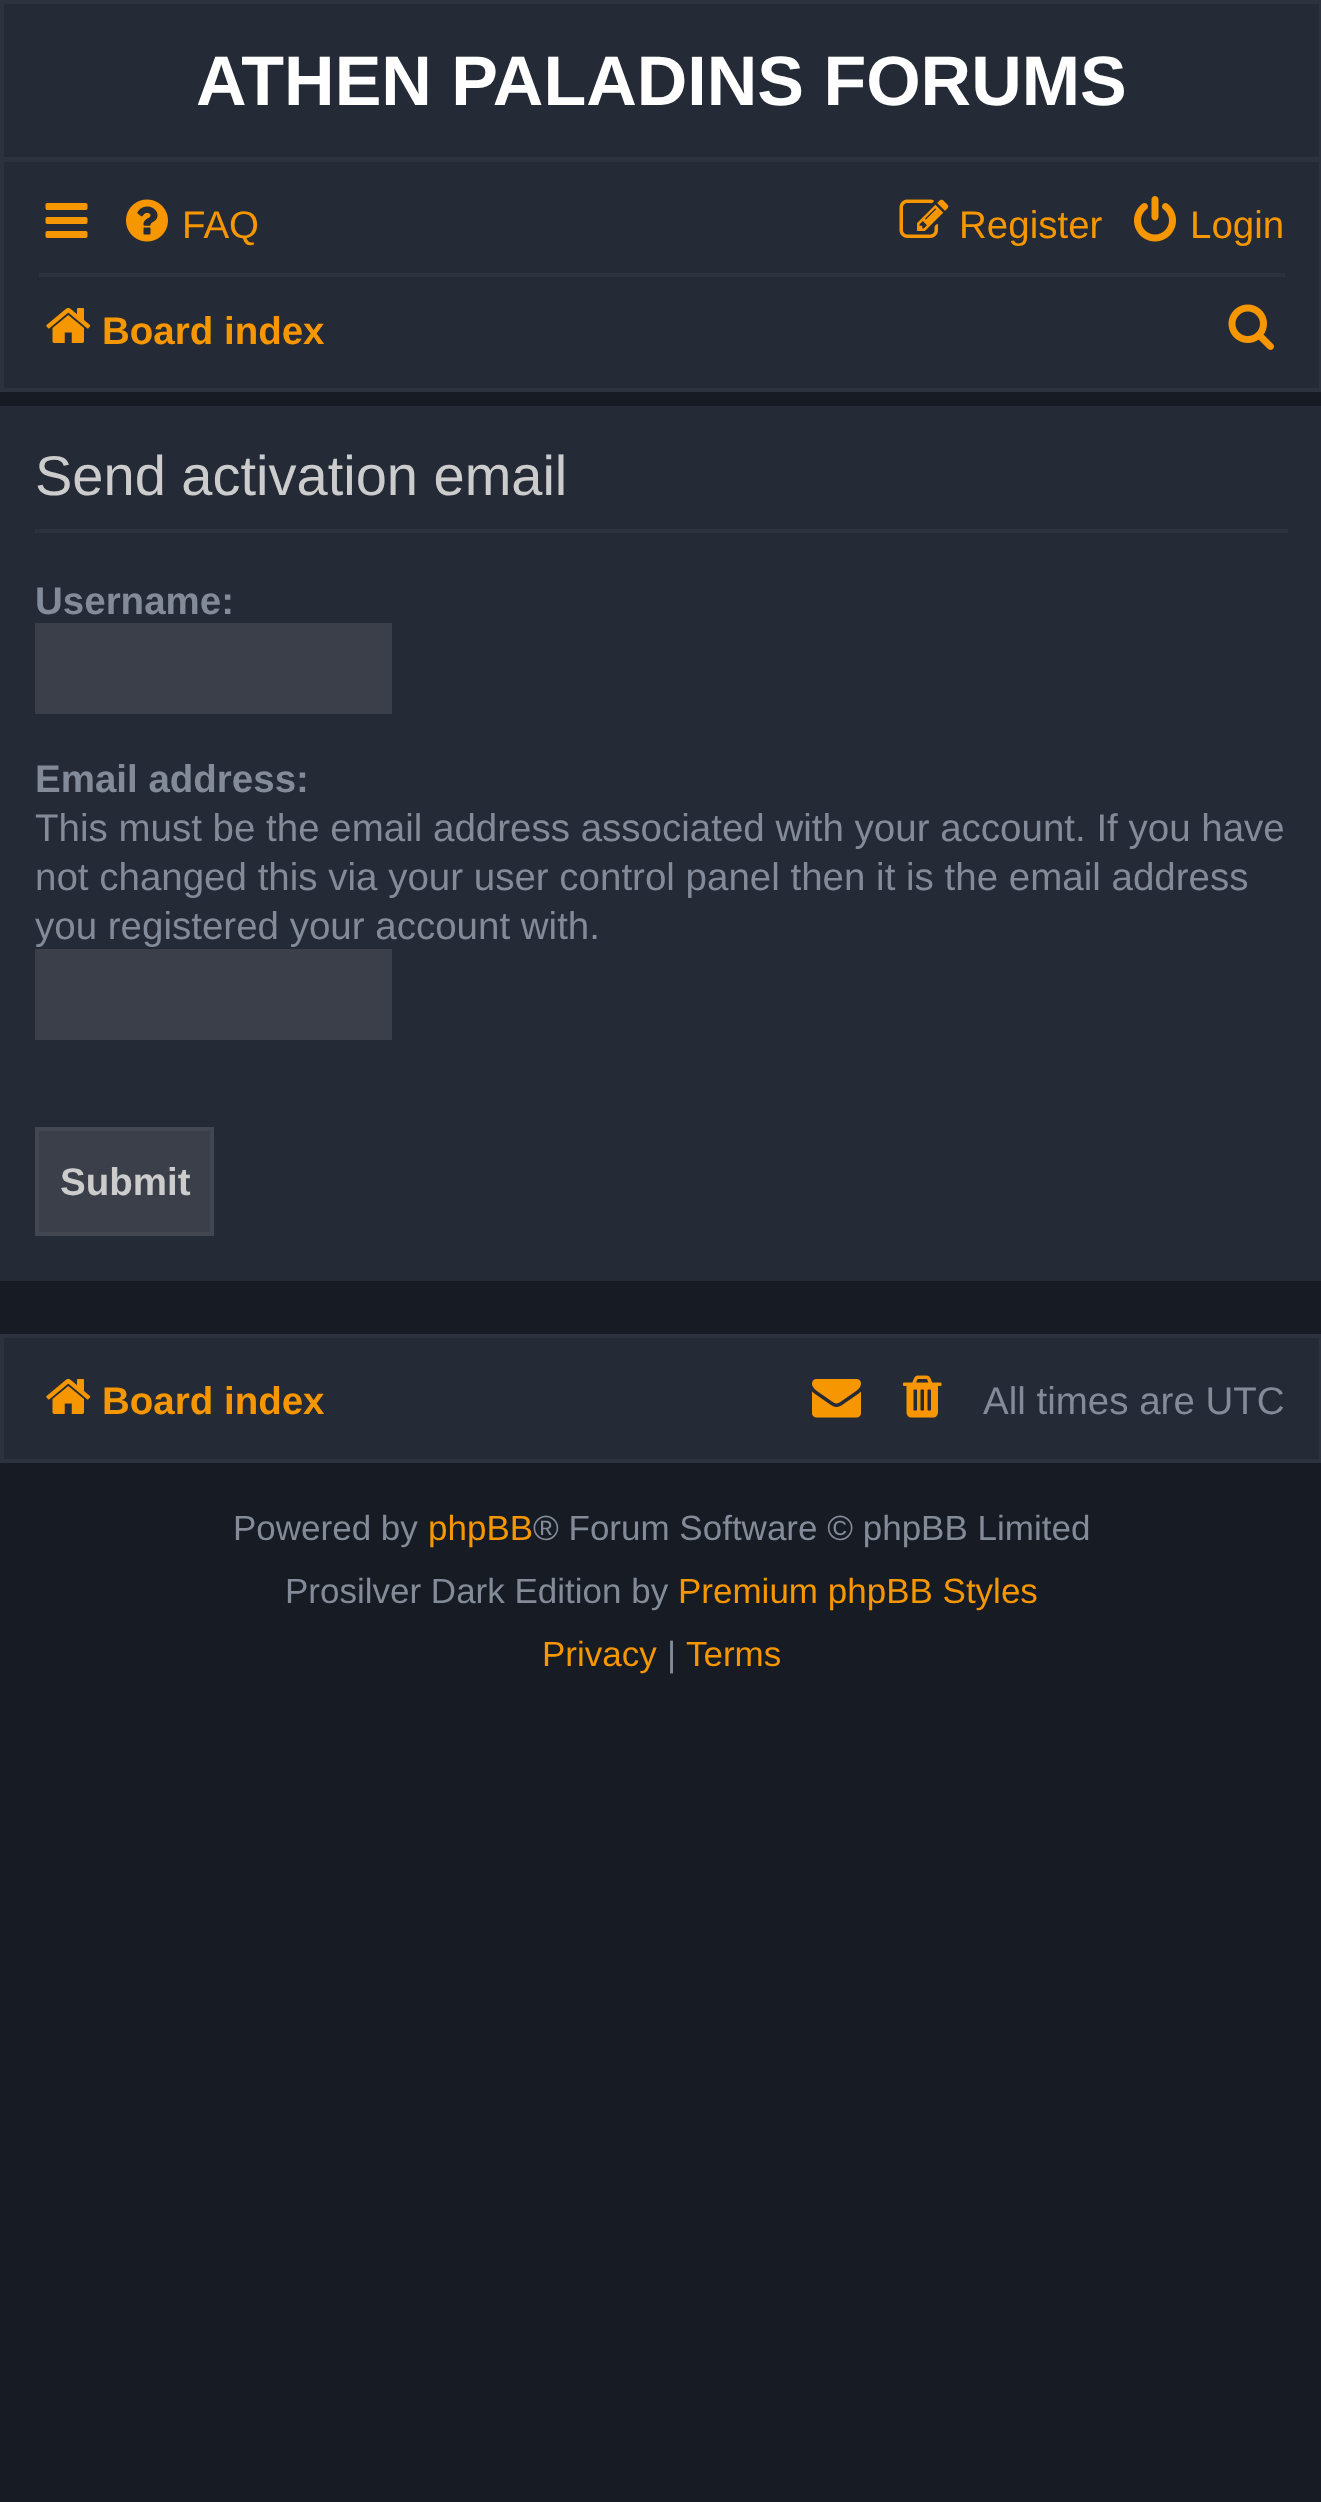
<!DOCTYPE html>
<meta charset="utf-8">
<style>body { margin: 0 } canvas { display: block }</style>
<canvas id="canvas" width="1321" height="2502"></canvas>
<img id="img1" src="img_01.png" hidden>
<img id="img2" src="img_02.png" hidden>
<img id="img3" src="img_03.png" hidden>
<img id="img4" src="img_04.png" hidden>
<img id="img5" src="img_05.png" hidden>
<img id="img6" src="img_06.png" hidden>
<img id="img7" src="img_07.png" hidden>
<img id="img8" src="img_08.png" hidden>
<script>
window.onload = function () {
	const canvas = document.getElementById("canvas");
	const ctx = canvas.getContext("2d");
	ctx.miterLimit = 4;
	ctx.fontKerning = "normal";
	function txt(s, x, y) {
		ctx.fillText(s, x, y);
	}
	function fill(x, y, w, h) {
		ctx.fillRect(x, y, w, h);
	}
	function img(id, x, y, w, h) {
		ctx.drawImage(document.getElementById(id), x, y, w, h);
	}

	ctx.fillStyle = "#171B24";
	fill(0, 0, 1321, 2502);
	ctx.fillStyle = "#242A36";
	ctx.beginPath();
	ctx.rect(2, 2, 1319, 157);
	ctx.fill();
	ctx.strokeStyle = "#2D333E";
	ctx.lineWidth = 4;
	ctx.stroke();
	ctx.beginPath();
	ctx.rect(2, 160, 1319, 230);
	ctx.fill();
	ctx.stroke();
	img("img1", 45, 203, 43, 35);
	img("img2", 126, 199, 42, 43);
	img("img3", 899, 199, 50, 39);
	img("img4", 1134, 196, 42, 46);
	ctx.fillStyle = "#2D333E";
	fill(39, 273, 1246, 4);
	img("img5", 46, 307, 45, 36);
	img("img6", 1228, 304, 46, 46);
	ctx.fillStyle = "#242A36";
	fill(0, 406, 1321, 875);
	ctx.fillStyle = "#2D333E";
	fill(35, 529, 1253, 4);
	ctx.fillStyle = "#3A3F4A";
	fill(35, 623, 357, 91);
	fill(35, 949, 357, 91);
	ctx.beginPath();
	ctx.rect(37, 1129, 175, 105);
	ctx.fill();
	ctx.strokeStyle = "#424751";
	ctx.stroke();
	ctx.fillStyle = "#242A36";
	ctx.beginPath();
	ctx.rect(2, 1336, 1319, 125);
	ctx.fill();
	ctx.strokeStyle = "#2D333E";
	ctx.stroke();
	img("img5", 46, 1378, 45, 36);
	img("img7", 812, 1379, 49, 39);
	img("img8", 903, 1375, 39, 43);
	ctx.font = "bold 70px Liberation Sans";
	ctx.fillStyle = "#FFFFFF";
	txt("ATHEN PALADINS FORUMS", 196, 105);
	ctx.font = "38.5px Liberation Sans";
	ctx.fillStyle = "#F69600";
	txt("FAQ", 182, 238);
	txt("Register", 959, 238);
	txt("Login", 1190, 238);
	ctx.font = "bold 38.5px Liberation Sans";
	txt("Board index", 102, 344);
	ctx.font = "56px Liberation Sans";
	ctx.fillStyle = "#CCCCCC";
	txt("Send activation email", 35, 495);
	ctx.font = "bold 38.5px Liberation Sans";
	ctx.fillStyle = "#838B98";
	txt("Username:", 35, 614);
	txt("Email address:", 35, 792);
	ctx.font = "38.5px Liberation Sans";
	txt("This must be the email address associated with your account. If you have", 35, 841);
	txt("not changed this via your user control panel then it is the email address", 35, 890);
	txt("you registered your account with.", 35, 939);
	ctx.font = "bold 38.5px Liberation Sans";
	ctx.fillStyle = "#CCCCCC";
	txt("Submit", 60, 1195);
	ctx.fillStyle = "#F69600";
	txt("Board index", 102, 1414);
	ctx.font = "38.5px Liberation Sans";
	ctx.fillStyle = "#838B98";
	txt("All times are UTC", 983, 1414);
	ctx.font = "35px Liberation Sans";
	txt("Powered by", 233, 1540);
	ctx.fillStyle = "#F69600";
	txt("phpBB", 428, 1540);
	ctx.fillStyle = "#838B98";
	txt("® Forum Software © phpBB Limited", 533, 1540);
	txt("Prosilver Dark Edition by", 285, 1603);
	ctx.fillStyle = "#F69600";
	txt("Premium phpBB Styles", 678, 1603);
	txt("Privacy", 542, 1666);
	ctx.fillStyle = "#838B98";
	txt("|", 667, 1666);
	ctx.fillStyle = "#F69600";
	txt("Terms", 686, 1666);
};
</script>
